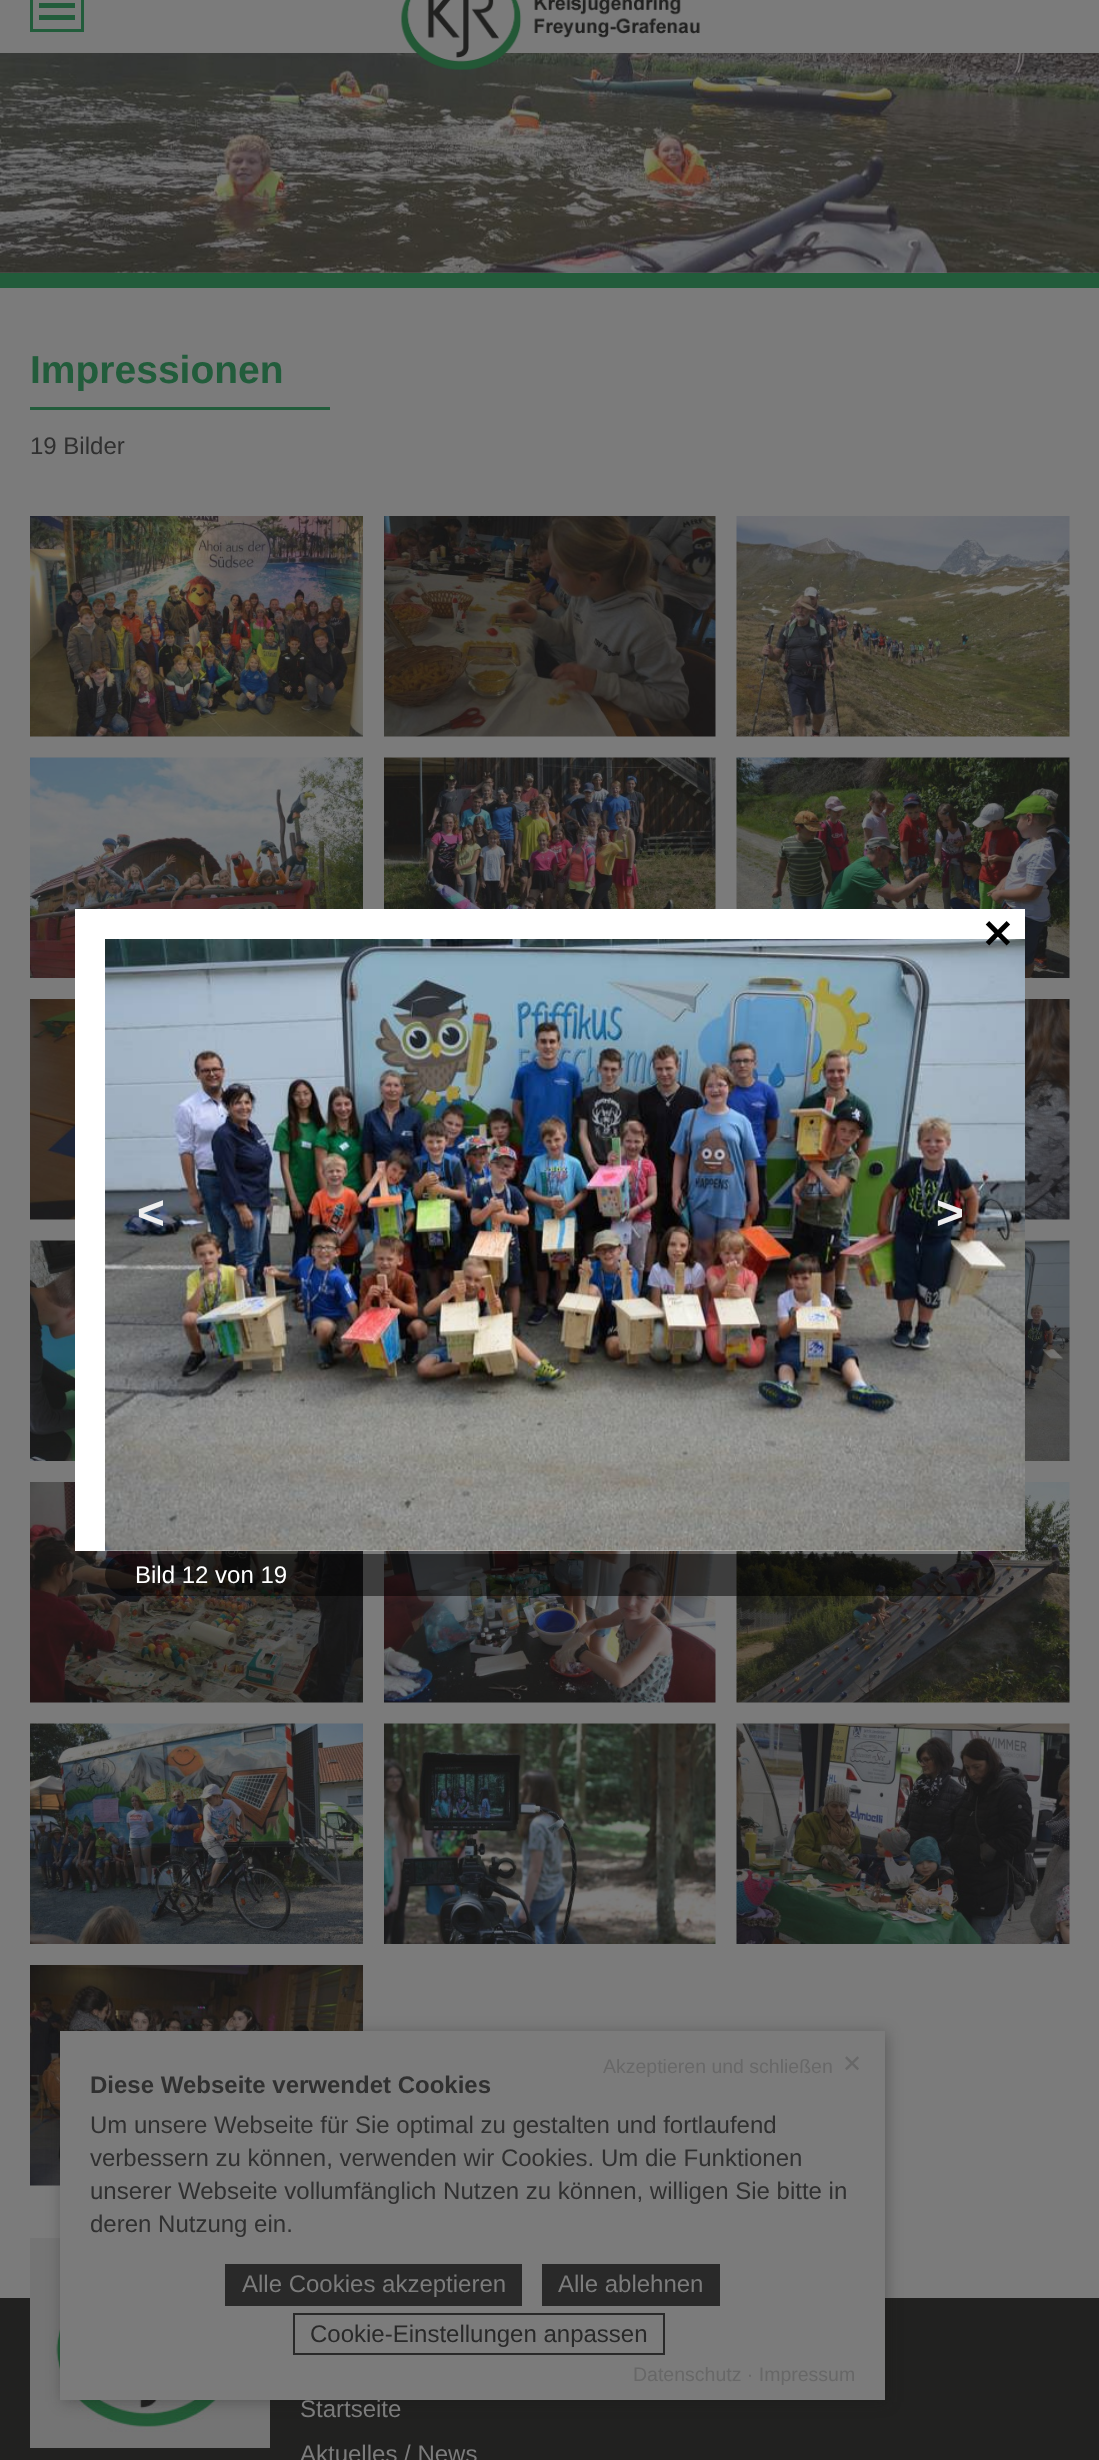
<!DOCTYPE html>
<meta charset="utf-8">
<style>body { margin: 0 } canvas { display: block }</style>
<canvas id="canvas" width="1099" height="2460"></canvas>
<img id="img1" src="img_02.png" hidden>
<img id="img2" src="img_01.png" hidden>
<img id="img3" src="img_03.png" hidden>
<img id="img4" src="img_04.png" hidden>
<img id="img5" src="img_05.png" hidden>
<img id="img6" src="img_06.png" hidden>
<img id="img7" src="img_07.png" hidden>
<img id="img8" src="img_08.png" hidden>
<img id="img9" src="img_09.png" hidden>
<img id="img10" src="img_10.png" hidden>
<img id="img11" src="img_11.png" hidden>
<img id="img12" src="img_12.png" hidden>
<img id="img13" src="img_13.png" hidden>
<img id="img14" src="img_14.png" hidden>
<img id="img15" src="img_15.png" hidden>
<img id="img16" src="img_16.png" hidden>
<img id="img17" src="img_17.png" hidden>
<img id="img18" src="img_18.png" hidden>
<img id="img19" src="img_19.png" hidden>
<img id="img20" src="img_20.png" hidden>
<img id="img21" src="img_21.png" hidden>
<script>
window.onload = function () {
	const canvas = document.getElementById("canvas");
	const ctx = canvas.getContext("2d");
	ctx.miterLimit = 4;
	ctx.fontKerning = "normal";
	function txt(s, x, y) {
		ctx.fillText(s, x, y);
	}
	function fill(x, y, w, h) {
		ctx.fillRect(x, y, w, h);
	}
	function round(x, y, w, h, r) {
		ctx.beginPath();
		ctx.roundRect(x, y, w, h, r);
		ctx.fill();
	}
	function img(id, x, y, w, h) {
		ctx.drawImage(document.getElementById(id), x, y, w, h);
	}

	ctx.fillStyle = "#7B7B7B";
	fill(0, 0, 1099, 2460);
	ctx.fillStyle = "#225C3B";
	fill(0, 273, 1099, 15);
	ctx.strokeStyle = "#225C3B";
	ctx.lineWidth = 3;
	ctx.strokeRect(31.5, -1.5, 51, 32);
	fill(39, 3, 36, 5);
	fill(39, 15, 36, 5);
	img("img1", 0, 53, 1099, 220);
	img("img2", 401, 0, 299, 70);
	fill(30, 407, 300, 3);
	img("img3", 30, 516, 333, 221);
	img("img4", 384, 516, 332, 221);
	img("img5", 736, 516, 334, 221);
	img("img6", 30, 757, 333, 221);
	img("img7", 384, 757, 332, 152);
	img("img8", 736, 757, 334, 221);
	img("img9", 30, 999, 45, 221);
	img("img10", 1025, 999, 45, 221);
	img("img11", 30, 1240, 45, 221);
	img("img12", 1025, 1240, 45, 221);
	img("img13", 30, 1482, 333, 221);
	img("img14", 384, 1551, 332, 152);
	img("img15", 736, 1482, 334, 221);
	img("img16", 30, 1723, 333, 221);
	img("img17", 384, 1723, 332, 221);
	img("img18", 736, 1723, 334, 221);
	img("img19", 30, 1965, 333, 221);
	ctx.fillStyle = "#FFFFFF";
	fill(75, 909, 950, 642);
	img("img20", 105, 939, 920, 612);
	ctx.fillStyle = "rgba(0, 0, 0, 0.5)";
	round(105, 1554, 890, 42, 21);
	ctx.fillStyle = "#212120";
	fill(0, 2298, 1099, 162);
	img("img21", 30, 2238, 240, 210);
	ctx.fillStyle = "rgba(21, 21, 21, 0.3)";
	ctx.filter = "blur(7.5px)";
	ctx.beginPath();
	ctx.rect(62, 2033, 825, 369);
	ctx.fill();
	ctx.filter = "none";
	ctx.fillStyle = "#7B7B7B";
	fill(60, 2031, 825, 369);
	ctx.fillStyle = "#292929";
	fill(225, 2264, 297, 42);
	fill(542, 2264, 178, 42);
	ctx.strokeStyle = "#292929";
	ctx.lineWidth = 2;
	ctx.strokeRect(294, 2314, 370, 40);
	ctx.font = "bold 39px Liberation Sans";
	ctx.fillStyle = "#225C3B";
	txt("Impressionen", 30, 383);
	ctx.font = "24px Liberation Sans";
	ctx.fillStyle = "#303030";
	txt("19 Bilder", 30, 454);
	ctx.font = "bold 39px DejaVu Sans";
	ctx.fillStyle = "#000000";
	txt("✕", 981, 948);
	ctx.font = "italic bold 48px Liberation Sans";
	ctx.fillStyle = "#EEEEEE";
	txt("<", 136, 1229);
	txt(">", 935, 1229);
	ctx.font = "24px Liberation Sans";
	ctx.fillStyle = "#FFFFFF";
	txt("Bild 12 von 19", 135, 1583);
	ctx.font = "19.5px Liberation Sans";
	ctx.fillStyle = "#676767";
	txt("Akzeptieren und schließen", 603, 2073);
	ctx.font = "24px DejaVu Sans";
	txt("✕", 842, 2072);
	ctx.font = "bold 24px Liberation Sans";
	ctx.fillStyle = "#303030";
	txt("Diese Webseite verwendet Cookies", 90, 2093);
	ctx.font = "24px Liberation Sans";
	txt("Um unsere Webseite für Sie optimal zu gestalten und fortlaufend", 90, 2133);
	txt("verbessern zu können, verwenden wir Cookies. Um die Funktionen", 90, 2166);
	txt("unserer Webseite vollumfänglich Nutzen zu können, willigen Sie bitte in", 90, 2199);
	txt("deren Nutzung ein.", 90, 2232);
	ctx.fillStyle = "#7B7B7B";
	txt("Alle Cookies akzeptieren", 242, 2292);
	txt("Alle ablehnen", 558, 2292);
	ctx.fillStyle = "#292929";
	txt("Cookie-Einstellungen anpassen", 310, 2342);
	ctx.font = "19.5px Liberation Sans";
	ctx.fillStyle = "#676767";
	txt("Datenschutz · Impressum", 633, 2381);
	ctx.font = "24px Liberation Sans";
	ctx.fillStyle = "#7B7B7B";
	txt("Startseite", 300, 2417);
	txt("Aktuelles / News", 300, 2462);
};
</script>
